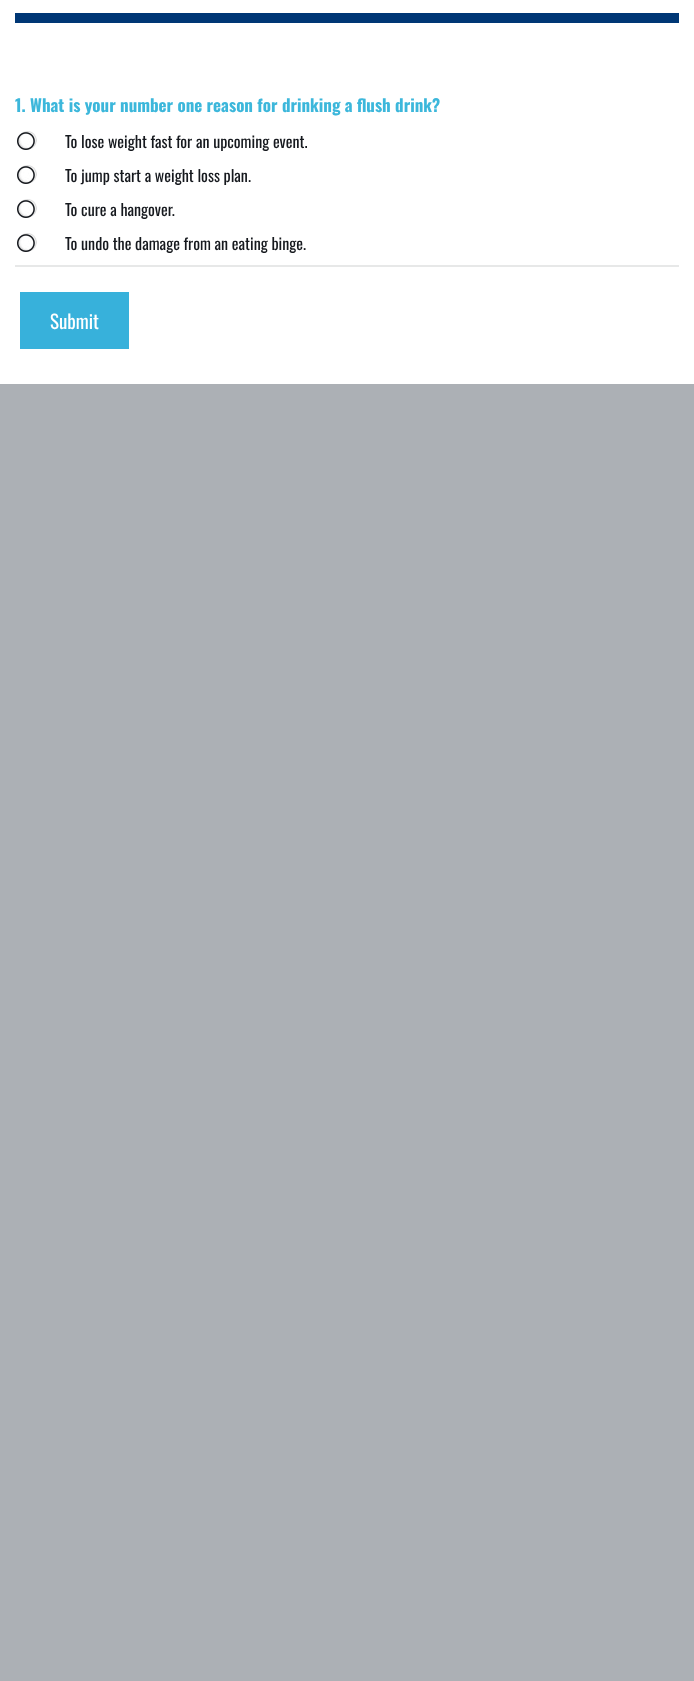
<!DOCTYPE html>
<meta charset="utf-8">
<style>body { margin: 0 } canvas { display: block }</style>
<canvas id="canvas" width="694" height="1681"></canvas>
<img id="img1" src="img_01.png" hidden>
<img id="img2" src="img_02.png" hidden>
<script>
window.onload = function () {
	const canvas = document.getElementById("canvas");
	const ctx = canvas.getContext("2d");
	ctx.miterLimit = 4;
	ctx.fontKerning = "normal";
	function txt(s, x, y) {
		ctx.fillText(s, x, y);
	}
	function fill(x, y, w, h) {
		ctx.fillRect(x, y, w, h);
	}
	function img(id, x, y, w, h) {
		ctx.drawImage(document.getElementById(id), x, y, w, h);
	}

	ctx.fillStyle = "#ACB0B5";
	fill(0, 0, 694, 1681);
	ctx.fillStyle = "#FFFFFF";
	fill(0, 0, 694, 384);
	ctx.fillStyle = "#003775";
	fill(15, 13, 664, 10);
	ctx.fillStyle = "#E7E8E8";
	fill(15, 265, 664, 2);
	img("img1", 18, 131, 19, 19);
	img("img2", 17, 132, 18, 18);
	img("img1", 18, 165, 19, 19);
	img("img2", 17, 166, 18, 18);
	img("img1", 18, 199, 19, 19);
	img("img2", 17, 200, 18, 18);
	img("img1", 18, 233, 19, 19);
	img("img2", 17, 234, 18, 18);
	ctx.fillStyle = "#37B1DB";
	fill(20, 292, 109, 57);
	ctx.font = "bold 17px Oswald";
	ctx.fillStyle = "#3CB7DB";
	txt("1. What is your number one reason for drinking a flush drink?", 15, 112);
	ctx.font = "16px Oswald";
	ctx.fillStyle = "#16191E";
	txt("To lose weight fast for an upcoming event.", 65, 148);
	txt("To jump start a weight loss plan.", 65, 182);
	txt("To cure a hangover.", 65, 216);
	txt("To undo the damage from an eating binge.", 65, 250);
	ctx.font = "19px Oswald";
	ctx.fillStyle = "#FFFFFF";
	txt("Submit", 50, 329);
};
</script>
